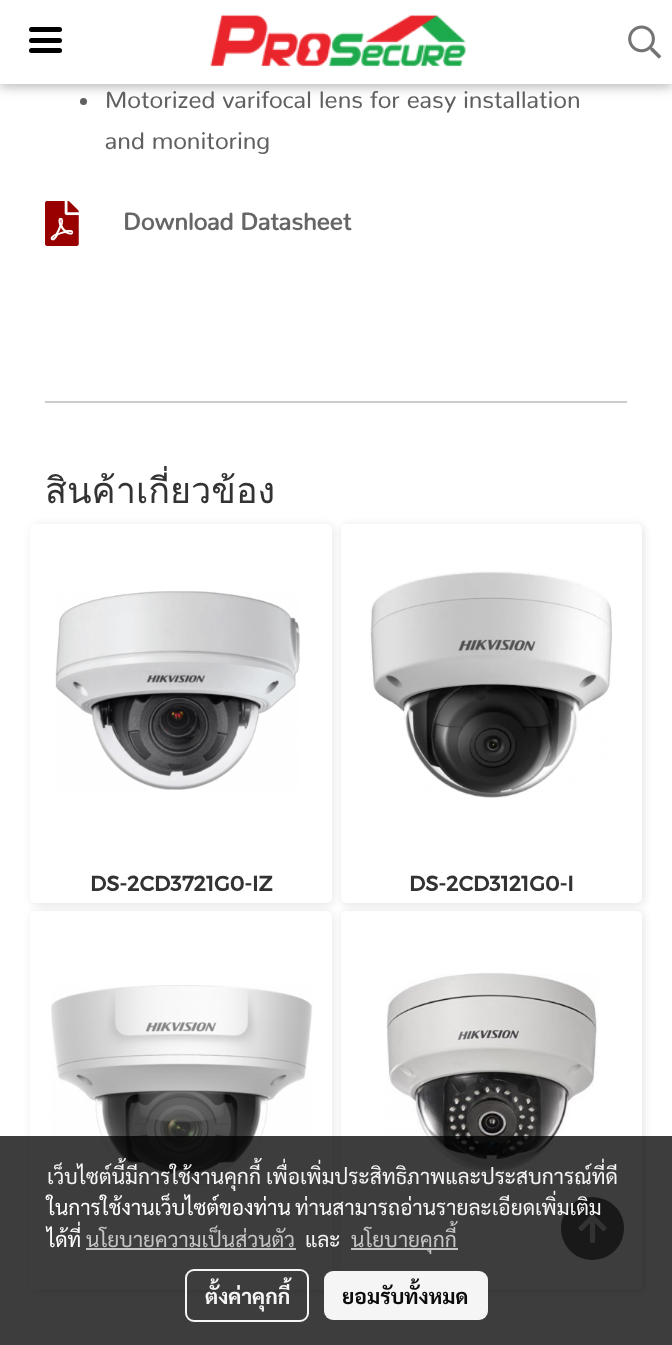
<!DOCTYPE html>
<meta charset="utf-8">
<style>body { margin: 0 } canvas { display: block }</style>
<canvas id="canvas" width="672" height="1345"></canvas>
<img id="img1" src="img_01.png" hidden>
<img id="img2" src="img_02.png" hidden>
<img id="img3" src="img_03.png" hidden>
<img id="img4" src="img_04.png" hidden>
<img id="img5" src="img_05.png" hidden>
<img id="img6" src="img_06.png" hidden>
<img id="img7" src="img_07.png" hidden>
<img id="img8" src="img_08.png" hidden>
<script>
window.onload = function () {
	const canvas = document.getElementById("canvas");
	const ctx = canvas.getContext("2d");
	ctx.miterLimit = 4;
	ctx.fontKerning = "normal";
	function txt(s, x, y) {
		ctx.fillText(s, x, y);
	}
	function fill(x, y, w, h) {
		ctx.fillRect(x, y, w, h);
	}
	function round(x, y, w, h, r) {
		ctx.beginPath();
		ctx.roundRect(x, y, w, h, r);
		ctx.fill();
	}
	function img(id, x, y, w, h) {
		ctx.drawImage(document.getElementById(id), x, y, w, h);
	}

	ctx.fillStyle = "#FFFFFF";
	fill(0, 0, 672, 1345);
	ctx.fillStyle = "#606060";
	ctx.beginPath();
	ctx.arc(83.5, 101.5, 3.5, 0, Math.PI * 2);
	ctx.fill();
	ctx.fillStyle = "rgba(0, 0, 0, 0.12)";
	ctx.filter = "blur(7.5px)";
	ctx.beginPath();
	ctx.rect(0, 3, 672, 84);
	ctx.fill();
	ctx.filter = "none";
	ctx.fillStyle = "rgba(0, 0, 0, 0.16)";
	ctx.filter = "blur(4px)";
	ctx.beginPath();
	ctx.rect(0, 3, 672, 84);
	ctx.fill();
	ctx.filter = "none";
	ctx.fillStyle = "#FFFFFF";
	fill(0, 0, 672, 84);
	ctx.fillStyle = "#000000";
	round(29, 38, 33, 5, 2.5);
	round(29, 27, 33, 5, 2.5);
	round(29, 48, 33, 5, 2.5);
	img("img1", 210, 14, 257, 53);
	img("img2", 628, 25, 34, 34);
	img("img3", 45, 201, 34, 45);
	ctx.fillStyle = "#CCCCCC";
	fill(45, 401, 582, 2);
	ctx.save();
	ctx.beginPath();
	ctx.moveTo(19, 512);
	ctx.lineTo(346, 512);
	ctx.lineTo(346, 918);
	ctx.lineTo(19, 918);
	ctx.closePath();
	ctx.moveTo(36, 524);
	ctx.lineTo(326, 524);
	ctx.bezierCurveTo(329.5, 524, 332, 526.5, 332, 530);
	ctx.lineTo(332, 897);
	ctx.bezierCurveTo(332, 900.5, 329.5, 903, 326, 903);
	ctx.lineTo(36, 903);
	ctx.bezierCurveTo(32.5, 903, 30, 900.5, 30, 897);
	ctx.lineTo(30, 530);
	ctx.bezierCurveTo(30, 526.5, 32.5, 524, 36, 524);
	ctx.closePath();
	ctx.clip("evenodd");
	ctx.fillStyle = "rgba(0, 0, 0, 0.1)";
	ctx.filter = "blur(4px)";
	ctx.beginPath();
	ctx.roundRect(32, 525, 301, 380, 6);
	ctx.fill();
	ctx.filter = "none";
	ctx.restore();
	img("img4", 55, 591, 245, 199);
	ctx.save();
	ctx.beginPath();
	ctx.moveTo(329, 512);
	ctx.lineTo(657, 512);
	ctx.lineTo(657, 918);
	ctx.lineTo(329, 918);
	ctx.closePath();
	ctx.moveTo(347, 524);
	ctx.lineTo(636, 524);
	ctx.bezierCurveTo(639.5, 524, 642, 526.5, 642, 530);
	ctx.lineTo(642, 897);
	ctx.bezierCurveTo(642, 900.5, 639.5, 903, 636, 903);
	ctx.lineTo(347, 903);
	ctx.bezierCurveTo(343.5, 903, 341, 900.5, 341, 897);
	ctx.lineTo(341, 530);
	ctx.bezierCurveTo(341, 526.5, 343.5, 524, 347, 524);
	ctx.closePath();
	ctx.clip("evenodd");
	ctx.fillStyle = "rgba(0, 0, 0, 0.1)";
	ctx.filter = "blur(4px)";
	ctx.beginPath();
	ctx.roundRect(342, 525, 302, 380, 6);
	ctx.fill();
	ctx.filter = "none";
	ctx.restore();
	img("img5", 370, 571, 242, 227);
	ctx.save();
	ctx.beginPath();
	ctx.moveTo(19, 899);
	ctx.lineTo(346, 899);
	ctx.lineTo(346, 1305);
	ctx.lineTo(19, 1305);
	ctx.closePath();
	ctx.moveTo(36, 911);
	ctx.lineTo(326, 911);
	ctx.bezierCurveTo(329.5, 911, 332, 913.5, 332, 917);
	ctx.lineTo(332, 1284);
	ctx.bezierCurveTo(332, 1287.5, 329.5, 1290, 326, 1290);
	ctx.lineTo(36, 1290);
	ctx.bezierCurveTo(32.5, 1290, 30, 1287.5, 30, 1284);
	ctx.lineTo(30, 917);
	ctx.bezierCurveTo(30, 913.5, 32.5, 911, 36, 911);
	ctx.closePath();
	ctx.clip("evenodd");
	ctx.fillStyle = "rgba(0, 0, 0, 0.1)";
	ctx.filter = "blur(4px)";
	ctx.beginPath();
	ctx.roundRect(32, 912, 301, 380, 6);
	ctx.fill();
	ctx.filter = "none";
	ctx.restore();
	img("img6", 51, 985, 262, 204);
	ctx.save();
	ctx.beginPath();
	ctx.moveTo(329, 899);
	ctx.lineTo(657, 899);
	ctx.lineTo(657, 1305);
	ctx.lineTo(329, 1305);
	ctx.closePath();
	ctx.moveTo(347, 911);
	ctx.lineTo(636, 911);
	ctx.bezierCurveTo(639.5, 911, 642, 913.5, 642, 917);
	ctx.lineTo(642, 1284);
	ctx.bezierCurveTo(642, 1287.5, 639.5, 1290, 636, 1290);
	ctx.lineTo(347, 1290);
	ctx.bezierCurveTo(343.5, 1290, 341, 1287.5, 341, 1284);
	ctx.lineTo(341, 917);
	ctx.bezierCurveTo(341, 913.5, 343.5, 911, 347, 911);
	ctx.closePath();
	ctx.clip("evenodd");
	ctx.fillStyle = "rgba(0, 0, 0, 0.1)";
	ctx.filter = "blur(4px)";
	ctx.beginPath();
	ctx.roundRect(342, 912, 302, 380, 6);
	ctx.fill();
	ctx.filter = "none";
	ctx.restore();
	img("img7", 386, 973, 212, 198);
	ctx.fillStyle = "#6B6A6A";
	ctx.beginPath();
	ctx.moveTo(592, 1197);
	ctx.bezierCurveTo(575, 1197, 561, 1211, 561, 1228);
	ctx.bezierCurveTo(561, 1246, 575, 1260, 592, 1260);
	ctx.bezierCurveTo(610, 1260, 624, 1246, 624, 1228);
	ctx.bezierCurveTo(624, 1211, 610, 1197, 592, 1197);
	ctx.closePath();
	ctx.fill();
	img("img8", 578, 1214, 29, 29);
	ctx.fillStyle = "rgba(0, 0, 0, 0.76)";
	fill(0, 1136, 672, 209);
	ctx.fillStyle = "#C5C5C5";
	fill(86, 1248, 210, 2);
	fill(351, 1248, 107, 2);
	ctx.beginPath();
	ctx.roundRect(186, 1270, 122, 51, 8);
	ctx.strokeStyle = "rgba(255, 255, 255, 0.95)";
	ctx.lineWidth = 2;
	ctx.stroke();
	ctx.fillStyle = "rgba(255, 255, 255, 0.95)";
	round(324, 1271, 164, 49, 9);
	ctx.font = "24px Nunito";
	ctx.fillStyle = "#606060";
	txt("Motorized varifocal lens for easy installation", 105, 108);
	txt("and monitoring", 105, 149);
	ctx.font = "bold 24px Nunito";
	ctx.fillStyle = "#666666";
	txt("Download Datasheet", 123, 230);
	ctx.font = "36px Loma";
	ctx.fillStyle = "#333333";
	txt("สินค้าเกี่ยวข้อง", 45, 503);
	ctx.font = "bold 21px Montserrat";
	txt("DS-2CD3721G0-IZ", 90, 891);
	txt("DS-2CD3121G0-I", 409, 891);
	ctx.font = "21px Sarabun";
	ctx.fillStyle = "#F5F5F5";
	txt("เว็บไซต์นี้มีการใช้งานคุกกี้ เพื่อเพิ่มประสิทธิภาพและประสบการณ์ที่ดี", 47, 1184);
	ctx.fillStyle = "#FFFFFF";
	txt("ในการใช้งานเว็บไซต์ของท่าน", 47, 1215);
	ctx.fillStyle = "#F5F5F5";
	txt("ท่านสามารถอ่านรายละเอียดเพิ่มเติม", 295, 1215);
	ctx.fillStyle = "#FFFFFF";
	txt("ได้ที่", 47, 1247);
	ctx.fillStyle = "#C5C5C5";
	txt("นโยบายความเป็นส่วนตัว", 86, 1247);
	ctx.fillStyle = "#F5F5F5";
	txt("และ", 305, 1247);
	ctx.fillStyle = "#C5C5C5";
	txt("นโยบายคุกกี้", 351, 1247);
	ctx.font = "bold 21px Sarabun";
	ctx.fillStyle = "#F5F5F5";
	txt("ตั้งค่าคุกกี้", 205, 1304);
	ctx.fillStyle = "#0C0C0C";
	txt("ยอมรับทั้งหมด", 342, 1304);
};
</script>
